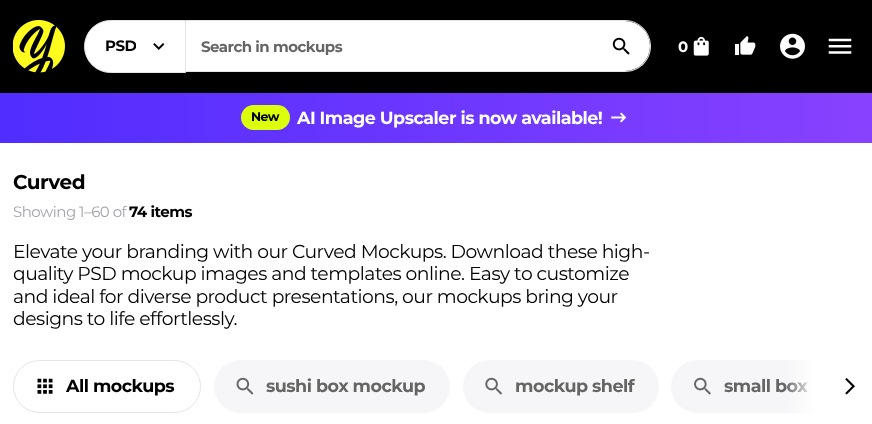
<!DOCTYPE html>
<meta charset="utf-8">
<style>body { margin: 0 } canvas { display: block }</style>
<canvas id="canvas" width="872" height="424"></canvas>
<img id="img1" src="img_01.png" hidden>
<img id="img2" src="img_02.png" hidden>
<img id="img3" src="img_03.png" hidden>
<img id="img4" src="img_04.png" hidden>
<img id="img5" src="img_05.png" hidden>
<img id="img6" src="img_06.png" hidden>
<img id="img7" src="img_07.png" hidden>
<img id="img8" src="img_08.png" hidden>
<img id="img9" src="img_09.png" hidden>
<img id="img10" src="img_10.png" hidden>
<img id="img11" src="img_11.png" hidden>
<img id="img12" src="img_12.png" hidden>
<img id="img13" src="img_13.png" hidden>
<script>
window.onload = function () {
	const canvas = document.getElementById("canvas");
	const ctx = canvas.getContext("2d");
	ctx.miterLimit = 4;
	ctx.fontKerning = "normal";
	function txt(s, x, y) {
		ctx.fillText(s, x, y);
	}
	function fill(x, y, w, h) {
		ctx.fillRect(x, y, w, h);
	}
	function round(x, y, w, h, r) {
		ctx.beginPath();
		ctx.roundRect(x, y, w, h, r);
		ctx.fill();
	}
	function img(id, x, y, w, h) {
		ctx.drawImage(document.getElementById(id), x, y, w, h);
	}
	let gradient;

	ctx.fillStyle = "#FFFFFF";
	fill(0, 0, 872, 424);
	ctx.fillStyle = "#000000";
	fill(0, 0, 872, 93);
	img("img1", 13, 20, 52, 53);
	ctx.fillStyle = "#FFFFFF";
	ctx.beginPath();
	ctx.roundRect(84.5, 20.5, 101, 52, [26, 0, 0, 26]);
	ctx.fill();
	ctx.strokeStyle = "#E2E5E9";
	ctx.stroke();
	img("img2", 153, 43, 12, 7);
	ctx.beginPath();
	ctx.roundRect(186, 21, 464, 50, [0, 25, 25, 0]);
	ctx.fill();
	ctx.fillStyle = "#E2E5E9";
	ctx.beginPath();
	ctx.moveTo(186, 20);
	ctx.lineTo(625, 20);
	ctx.bezierCurveTo(639, 20, 651, 32, 651, 46);
	ctx.bezierCurveTo(651, 61, 639, 72, 625, 72);
	ctx.lineTo(186, 72);
	ctx.closePath();
	ctx.moveTo(186, 21);
	ctx.lineTo(625, 21);
	ctx.bezierCurveTo(639, 21, 650, 32, 650, 46);
	ctx.bezierCurveTo(650, 60, 639, 71, 625, 71);
	ctx.lineTo(186, 71);
	ctx.closePath();
	ctx.fill("evenodd");
	img("img3", 612, 37, 18, 18);
	img("img4", 693, 36, 16, 20);
	img("img5", 735, 36, 21, 19);
	img("img6", 780, 33, 25, 26);
	img("img7", 828, 38, 24, 16);
	gradient = ctx.createLinearGradient(0, 118, 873, 117);
	gradient.addColorStop(0.01, "#512DFF");
	gradient.addColorStop(1, "#8841FF");
	ctx.fillStyle = gradient;
	fill(0, 93, 872, 50);
	ctx.fillStyle = "#DCFF0B";
	round(241, 105, 49, 25, 12.5);
	img("img8", 611, 112, 16, 11);
	ctx.beginPath();
	ctx.roundRect(13.5, 360.5, 187, 52, 26);
	ctx.stroke();
	img("img9", 37, 378, 16, 16);
	ctx.fillStyle = "#F6F6F8";
	round(214, 360, 236, 53, 26.5);
	img("img10", 236, 377, 18, 18);
	round(463, 360, 196, 53, 26.5);
	img("img11", 485, 377, 18, 18);
	ctx.beginPath();
	ctx.roundRect(671, 360, 189, 53, [26.5, 0, 0, 26.5]);
	ctx.fill();
	img("img12", 694, 377, 17, 18);
	ctx.save();
	ctx.beginPath();
	ctx.rect(105, 38, 31, 17);
	ctx.clip();
	ctx.letterSpacing = "-0.5px";
	ctx.font = "100 15px Montserrat";
	ctx.fillStyle = "#000000";
	txt("PSD", 105, 51);
	ctx.restore();
	ctx.letterSpacing = "-0.5px";
	ctx.font = "100 15px Montserrat";
	ctx.fillStyle = "#656565";
	txt("Search in mockups", 201, 52);
	ctx.fillStyle = "#FFFFFF";
	txt("0", 678, 52);
	ctx.font = "100 12.5px Montserrat";
	ctx.fillStyle = "#000000";
	txt("New", 251, 121);
	ctx.font = "100 17.5px Montserrat";
	ctx.fillStyle = "#FFFFFF";
	txt("AI Image Upscaler is now available!", 297, 124);
	ctx.font = "100 20px Montserrat";
	ctx.fillStyle = "#000000";
	txt("Curved", 13, 189);
	ctx.font = "100 15px 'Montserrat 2'";
	ctx.fillStyle = "#A4A2AD";
	txt("Showing 1–60 of", 13, 217);
	ctx.font = "100 15px Montserrat";
	ctx.fillStyle = "#000000";
	txt("74 items", 129, 217);
	ctx.font = "100 18.75px 'Montserrat 2'";
	txt("Elevate your branding with our Curved Mockups. Download these high-", 13, 258);
	txt("quality PSD mockup images and templates online. Easy to customize", 13, 280);
	txt("and ideal for diverse product presentations, our mockups bring your", 13, 303);
	txt("designs to life effortlessly.", 13, 325);
	ctx.font = "100 17.5px Montserrat";
	txt("All mockups", 66, 392);
	ctx.fillStyle = "#656565";
	txt("sushi box mockup", 266, 392);
	txt("mockup shelf", 515, 392);
	txt("small box", 724, 392);
	gradient = ctx.createLinearGradient(860, 386, 760, 386);
	gradient.addColorStop(0.2, "#FFFFFF");
	gradient.addColorStop(0.45, "rgba(255, 255, 255, 0.97)");
	gradient.addColorStop(0.75, "rgba(255, 255, 255, 0)");
	ctx.fillStyle = gradient;
	fill(787, 360, 73, 53);
	img("img13", 845, 378, 10, 17);
};
</script>
